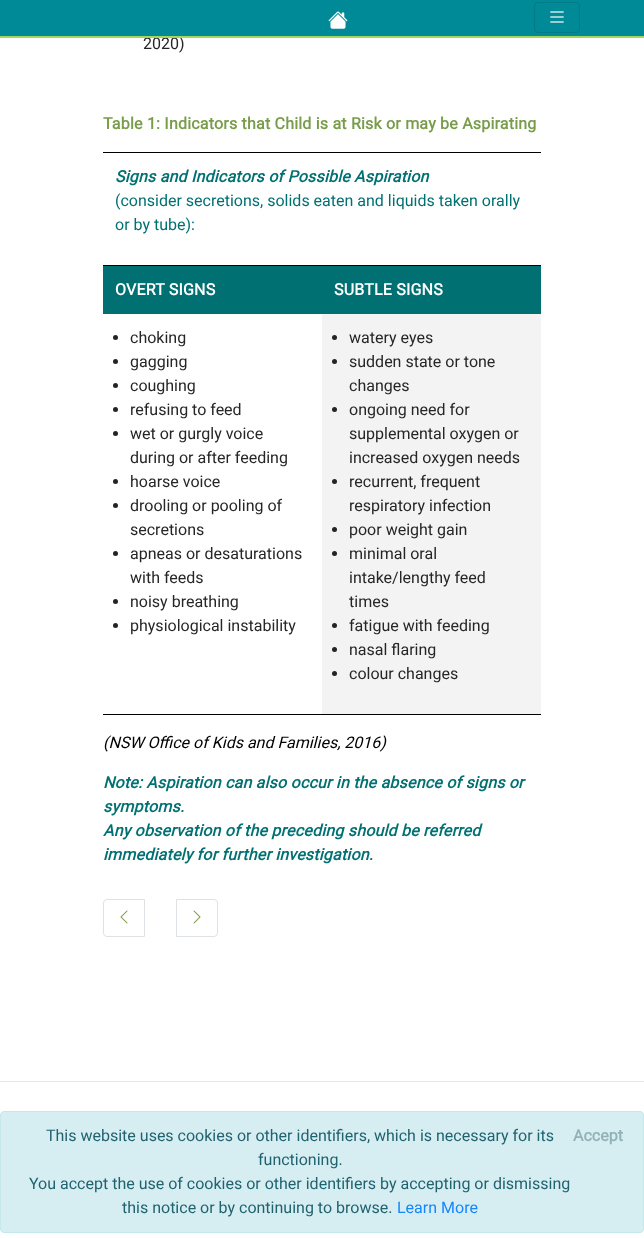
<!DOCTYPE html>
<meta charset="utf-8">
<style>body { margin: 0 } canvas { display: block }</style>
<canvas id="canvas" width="644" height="1238"></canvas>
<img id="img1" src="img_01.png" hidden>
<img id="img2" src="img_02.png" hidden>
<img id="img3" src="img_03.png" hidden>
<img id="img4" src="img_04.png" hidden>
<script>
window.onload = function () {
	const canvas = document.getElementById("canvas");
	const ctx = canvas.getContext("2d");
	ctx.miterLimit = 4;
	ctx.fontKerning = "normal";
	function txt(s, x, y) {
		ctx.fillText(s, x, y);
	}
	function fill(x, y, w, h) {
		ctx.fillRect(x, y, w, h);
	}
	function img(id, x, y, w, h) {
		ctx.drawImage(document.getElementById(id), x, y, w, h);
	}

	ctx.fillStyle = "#FFFFFF";
	fill(0, 0, 644, 1238);
	ctx.fillStyle = "#008996";
	fill(0, 0, 644, 36);
	img("img1", 328, 11, 20, 18);
	ctx.beginPath();
	ctx.roundRect(534.5, 2.5, 45, 30, 3.5);
	ctx.strokeStyle = "#007B87";
	ctx.stroke();
	img("img2", 550, 11, 14, 12);
	ctx.fillStyle = "#000000";
	fill(103, 152, 438, 1);
	ctx.fillStyle = "#007072";
	fill(103, 266, 438, 48);
	ctx.fillStyle = "#000000";
	fill(103, 265, 438, 1);
	ctx.fillStyle = "#212529";
	ctx.beginPath();
	ctx.arc(115.5, 337.5, 2.5, 0, Math.PI * 2);
	ctx.fill();
	ctx.beginPath();
	ctx.arc(115.5, 361.5, 2.5, 0, Math.PI * 2);
	ctx.fill();
	ctx.beginPath();
	ctx.arc(115.5, 385.5, 2.5, 0, Math.PI * 2);
	ctx.fill();
	ctx.beginPath();
	ctx.arc(115.5, 409.5, 2.5, 0, Math.PI * 2);
	ctx.fill();
	ctx.beginPath();
	ctx.arc(115.5, 433.5, 2.5, 0, Math.PI * 2);
	ctx.fill();
	ctx.beginPath();
	ctx.arc(115.5, 481.5, 2.5, 0, Math.PI * 2);
	ctx.fill();
	ctx.beginPath();
	ctx.arc(115.5, 505.5, 2.5, 0, Math.PI * 2);
	ctx.fill();
	ctx.beginPath();
	ctx.arc(115.5, 553.5, 2.5, 0, Math.PI * 2);
	ctx.fill();
	ctx.beginPath();
	ctx.arc(115.5, 601.5, 2.5, 0, Math.PI * 2);
	ctx.fill();
	ctx.beginPath();
	ctx.arc(115.5, 625.5, 2.5, 0, Math.PI * 2);
	ctx.fill();
	ctx.fillStyle = "#F3F3F3";
	fill(322, 314, 219, 400);
	ctx.fillStyle = "#000000";
	fill(103, 714, 438, 1);
	ctx.fillStyle = "#212529";
	ctx.beginPath();
	ctx.arc(334.5, 337.5, 2.5, 0, Math.PI * 2);
	ctx.fill();
	ctx.beginPath();
	ctx.arc(334.5, 361.5, 2.5, 0, Math.PI * 2);
	ctx.fill();
	ctx.beginPath();
	ctx.arc(334.5, 409.5, 2.5, 0, Math.PI * 2);
	ctx.fill();
	ctx.beginPath();
	ctx.arc(334.5, 481.5, 2.5, 0, Math.PI * 2);
	ctx.fill();
	ctx.beginPath();
	ctx.arc(334.5, 529.5, 2.5, 0, Math.PI * 2);
	ctx.fill();
	ctx.beginPath();
	ctx.arc(334.5, 553.5, 2.5, 0, Math.PI * 2);
	ctx.fill();
	ctx.beginPath();
	ctx.arc(334.5, 625.5, 2.5, 0, Math.PI * 2);
	ctx.fill();
	ctx.beginPath();
	ctx.arc(334.5, 649.5, 2.5, 0, Math.PI * 2);
	ctx.fill();
	ctx.beginPath();
	ctx.arc(334.5, 673.5, 2.5, 0, Math.PI * 2);
	ctx.fill();
	ctx.beginPath();
	ctx.roundRect(103.5, 899.5, 41, 37, [3.5, 0, 0, 3.5]);
	ctx.strokeStyle = "#DEE2E6";
	ctx.stroke();
	img("img3", 120, 910, 8, 14);
	ctx.beginPath();
	ctx.roundRect(176.5, 899.5, 41, 37, [0, 3.5, 3.5, 0]);
	ctx.stroke();
	img("img4", 193, 910, 8, 14);
	ctx.fillStyle = "rgba(209, 236, 241, 0.9)";
	ctx.beginPath();
	ctx.roundRect(0.5, 1111.5, 643, 121, 3.5);
	ctx.fill();
	ctx.strokeStyle = "#C5E8ED";
	ctx.stroke();
	ctx.fillStyle = "#E6E6E6";
	fill(0, 1081, 644, 1);
	ctx.font = "16px Roboto";
	ctx.fillStyle = "#262626";
	txt("2020)", 143, 49);
	ctx.fillStyle = "#A4D55D";
	fill(0, 36, 644, 2);
	ctx.letterSpacing = "0.2px";
	ctx.font = "bold 16px Roboto";
	ctx.fillStyle = "#799C4B";
	txt("Table 1: Indicators that Child is at Risk or may be Aspirating", 103, 129);
	ctx.font = "italic bold 16px Roboto";
	ctx.fillStyle = "#007072";
	txt("Signs and Indicators of Possible Aspiration", 115, 182);
	ctx.letterSpacing = "0px";
	ctx.font = "16px Roboto";
	txt("(consider secretions, solids eaten and liquids taken orally", 115, 206);
	txt("or by tube):", 115, 230);
	ctx.letterSpacing = "0.2px";
	ctx.font = "bold 16px Roboto";
	ctx.fillStyle = "#FFFFFF";
	txt("OVERT SIGNS", 115, 295);
	txt("SUBTLE SIGNS", 334, 295);
	ctx.letterSpacing = "0px";
	ctx.font = "16px Roboto";
	ctx.fillStyle = "#262626";
	txt("choking", 130, 343);
	txt("gagging", 130, 367);
	txt("coughing", 130, 391);
	txt("refusing to feed", 130, 415);
	txt("wet or gurgly voice", 130, 439);
	txt("during or after feeding", 130, 463);
	txt("hoarse voice", 130, 487);
	txt("drooling or pooling of", 130, 511);
	txt("secretions", 130, 535);
	txt("apneas or desaturations", 130, 559);
	txt("with feeds", 130, 583);
	txt("noisy breathing", 130, 607);
	txt("physiological instability", 130, 631);
	txt("watery eyes", 349, 343);
	txt("sudden state or tone", 349, 367);
	txt("changes", 349, 391);
	txt("ongoing need for", 349, 415);
	txt("supplemental oxygen or", 349, 439);
	txt("increased oxygen needs", 349, 463);
	txt("recurrent, frequent", 349, 487);
	txt("respiratory infection", 349, 511);
	txt("poor weight gain", 349, 535);
	txt("minimal oral", 349, 559);
	txt("intake/lengthy feed", 349, 583);
	txt("times", 349, 607);
	txt("fatigue with feeding", 349, 631);
	txt("nasal flaring", 349, 655);
	txt("colour changes", 349, 679);
	ctx.font = "italic 16px Roboto";
	ctx.fillStyle = "#000000";
	txt("(NSW Office of Kids and Families, 2016)", 103, 748);
	ctx.letterSpacing = "0.2px";
	ctx.font = "italic bold 16px Roboto";
	ctx.fillStyle = "#007072";
	txt("Note: Aspiration can also occur in the absence of signs or", 103, 788);
	txt("symptoms.", 103, 812);
	txt("Any observation of the preceding should be referred", 103, 836);
	txt("immediately for further investigation.", 103, 860);
	ctx.letterSpacing = "0px";
	ctx.font = "16px Roboto";
	ctx.fillStyle = "#20636F";
	txt("This website uses cookies or other identifiers, which is necessary for its", 46, 1141);
	ctx.font = "bold 16px Roboto";
	ctx.fillStyle = "#92B2B7";
	txt("Accept", 573, 1141);
	ctx.font = "16px Roboto";
	ctx.fillStyle = "#20636F";
	txt("functioning.", 258, 1165);
	txt("You accept the use of cookies or other identifiers by accepting or dismissing", 29, 1189);
	txt("this notice or by continuing to browse.", 122, 1213);
	ctx.fillStyle = "#1586FD";
	txt("Learn More", 397, 1213);
};
</script>
